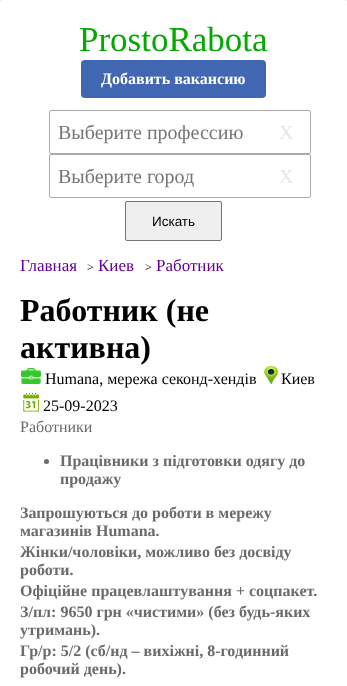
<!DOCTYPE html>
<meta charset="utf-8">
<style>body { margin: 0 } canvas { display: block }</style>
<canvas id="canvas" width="347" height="686"></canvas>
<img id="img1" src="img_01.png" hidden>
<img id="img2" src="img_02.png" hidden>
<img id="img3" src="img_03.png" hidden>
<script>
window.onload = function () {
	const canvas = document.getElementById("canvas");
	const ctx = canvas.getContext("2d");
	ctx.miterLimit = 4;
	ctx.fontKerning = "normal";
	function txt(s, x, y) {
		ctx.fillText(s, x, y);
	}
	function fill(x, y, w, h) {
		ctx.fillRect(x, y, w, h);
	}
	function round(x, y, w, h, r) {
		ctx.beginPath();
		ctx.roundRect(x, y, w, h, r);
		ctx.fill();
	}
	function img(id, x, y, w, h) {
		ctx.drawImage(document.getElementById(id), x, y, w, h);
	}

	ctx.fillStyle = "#EEEEEE";
	fill(0, 0, 347, 686);
	ctx.fillStyle = "#CCCCCC";
	ctx.filter = "blur(5px)";
	ctx.beginPath();
	ctx.roundRect(-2, 2, 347, 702, 3);
	ctx.fill();
	ctx.filter = "none";
	ctx.fillStyle = "#FFFFFF";
	round(0, 0, 347, 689, 3);
	ctx.fillStyle = "#4267B2";
	round(81, 60, 185, 38, 4);
	ctx.beginPath();
	ctx.roundRect(49.5, 110.5, 261, 43, 1.5);
	ctx.strokeStyle = "#AAAAAA";
	ctx.stroke();
	ctx.beginPath();
	ctx.roundRect(49.5, 154.5, 261, 43, 1.5);
	ctx.stroke();
	ctx.fillStyle = "#EFEFEF";
	ctx.beginPath();
	ctx.roundRect(125.5, 201.5, 96, 39, 1.5);
	ctx.fill();
	ctx.strokeStyle = "#767676";
	ctx.stroke();
	img("img1", 21, 368, 20, 16);
	img("img2", 263, 366, 16, 19);
	img("img3", 23, 393, 17, 19);
	ctx.fillStyle = "#6B6B6B";
	ctx.beginPath();
	ctx.arc(46.5, 461.5, 2.5, 0, Math.PI * 2);
	ctx.fill();
	ctx.font = "35px Liberation Serif";
	ctx.fillStyle = "#00AA00";
	txt("ProstoRabota", 79, 51);
	ctx.font = "bold 16px Liberation Serif";
	ctx.fillStyle = "#FFFFFF";
	txt("Добавить вакансию", 101, 84);
	ctx.font = "20px Liberation Serif";
	ctx.fillStyle = "#757575";
	txt("Выберите профессию", 58, 139);
	ctx.fillStyle = "#E6E6E6";
	txt("X", 279, 139);
	ctx.fillStyle = "#757575";
	txt("Выберите город", 58, 183);
	ctx.fillStyle = "#E6E6E6";
	txt("X", 279, 183);
	ctx.font = "13.5px Liberation Sans";
	ctx.fillStyle = "#000000";
	txt("Искать", 152, 226);
	ctx.font = "17px Liberation Serif";
	ctx.fillStyle = "#660099";
	txt("Главная", 20, 271);
	ctx.font = "12px Liberation Serif";
	ctx.fillStyle = "#000000";
	txt(">", 87, 271);
	ctx.font = "17px Liberation Serif";
	ctx.fillStyle = "#660099";
	txt("Киев", 98, 271);
	ctx.font = "12px Liberation Serif";
	ctx.fillStyle = "#000000";
	txt(">", 145, 271);
	ctx.font = "17px Liberation Serif";
	ctx.fillStyle = "#660099";
	txt("Работник", 156, 271);
	ctx.font = "bold 32px Liberation Serif";
	ctx.fillStyle = "#000000";
	txt("Работник (не", 20, 321);
	txt("активна)", 20, 358);
	ctx.font = "16px Liberation Serif";
	txt("Humana, мережа секонд-хендів", 45, 384);
	txt("Киев", 281, 384);
	txt("25-09-2023", 43, 411);
	ctx.fillStyle = "#6B6B6B";
	txt("Работники", 20, 432);
	ctx.font = "bold 16px Liberation Serif";
	txt("Працівники з підготовки одягу до", 60, 466);
	txt("продажу", 60, 484);
	txt("Запрошуються до роботи в мережу", 20, 518);
	txt("магазинів Humana.", 20, 536);
	txt("Жінки/чоловіки, можливо без досвіду", 20, 557);
	txt("роботи.", 20, 575);
	txt("Офіційне працевлаштування + соцпакет.", 20, 596);
	txt("З/пл: 9650 грн «чистими» (без будь-яких", 20, 617);
	txt("утримань).", 20, 635);
	txt("Гр/р: 5/2 (сб/нд – вихіжні, 8-годинний", 20, 656);
	txt("робочий день).", 20, 674);
};
</script>
